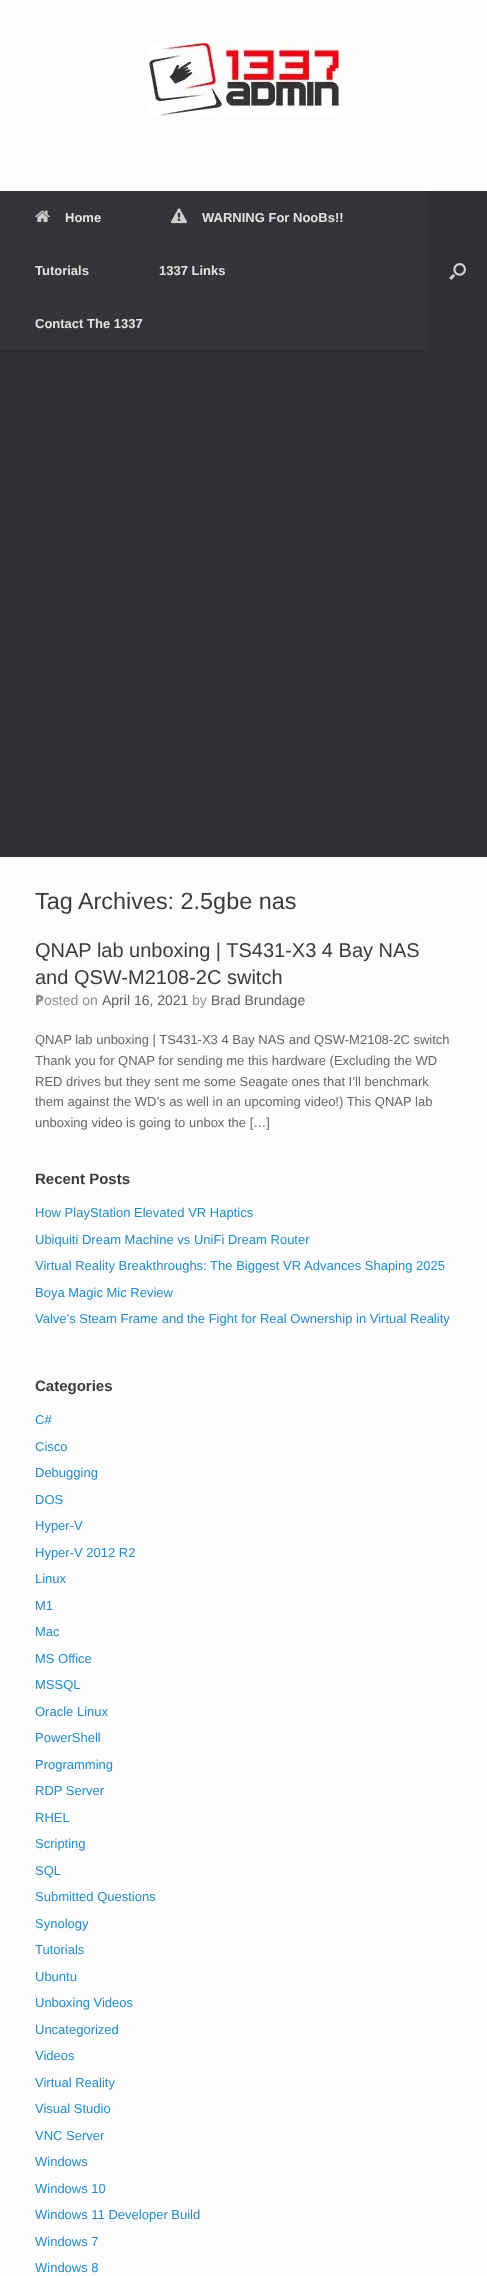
<!DOCTYPE html>
<meta charset="utf-8">
<style>body { margin: 0 } canvas { display: block }</style>
<canvas id="canvas" width="487" height="2276"></canvas>
<img id="img1" src="img_01.png" hidden>
<img id="img2" src="img_02.png" hidden>
<img id="img3" src="img_03.png" hidden>
<img id="img4" src="img_04.png" hidden>
<script>
window.onload = function () {
	const canvas = document.getElementById("canvas");
	const ctx = canvas.getContext("2d");
	ctx.miterLimit = 4;
	ctx.fontKerning = "normal";
	function txt(s, x, y) {
		ctx.fillText(s, x, y);
	}
	function fill(x, y, w, h) {
		ctx.fillRect(x, y, w, h);
	}
	function img(id, x, y, w, h) {
		ctx.drawImage(document.getElementById(id), x, y, w, h);
	}

	ctx.fillStyle = "#2F3033";
	fill(0, 0, 487, 2276);
	ctx.fillStyle = "#FCFCFC";
	fill(0, 0, 487, 191);
	img("img1", 149, 43, 190, 73);
	ctx.fillStyle = "#343538";
	fill(0, 191, 428, 159);
	img("img2", 35, 210, 15, 12);
	img("img3", 171, 208, 16, 16);
	img("img4", 449, 263, 17, 17);
	ctx.fillStyle = "#FCFCFC";
	fill(0, 857, 487, 1419);
	ctx.font = "bold 13px Liberation Sans";
	ctx.fillStyle = "#E2E2E2";
	txt("Home", 65, 222);
	txt("WARNING For NooBs!!", 202, 222);
	txt("Tutorials", 35, 275);
	txt("1337 Links", 159, 275);
	txt("Contact The 1337", 35, 328);
	ctx.font = "23.4px Liberation Sans";
	ctx.fillStyle = "#3B3B3B";
	txt("Tag Archives: 2.5gbe nas", 35, 909);
	ctx.font = "20px Liberation Sans";
	txt("QNAP lab unboxing | TS431-X3 4 Bay NAS", 35, 957);
	txt("and QSW-M2108-2C switch", 35, 984);
	ctx.font = "900 14px Noto Sans";
	ctx.fillStyle = "#8F8F8F";
	txt("P", 35, 1005);
	ctx.font = "14px Liberation Sans";
	txt("osted on", 44, 1005);
	ctx.fillStyle = "#5E5E5E";
	txt("April 16, 2021", 102, 1005);
	ctx.fillStyle = "#8F8F8F";
	txt("by", 192, 1005);
	ctx.fillStyle = "#5E5E5E";
	txt("Brad Brundage", 211, 1005);
	ctx.font = "13px Liberation Sans";
	ctx.fillStyle = "#666666";
	txt("QNAP lab unboxing | TS431-X3 4 Bay NAS and QSW-M2108-2C switch", 35, 1044);
	txt("Thank you for QNAP for sending me this hardware (Excluding the WD", 35, 1065);
	txt("RED drives but they sent me some Seagate ones that I’ll benchmark", 35, 1086);
	txt("them against the WD’s as well in an upcoming video!) This QNAP lab", 35, 1106);
	txt("unboxing video is going to unbox the […]", 35, 1127);
	ctx.font = "bold 15px Liberation Sans";
	ctx.fillStyle = "#3B3B3B";
	txt("Recent Posts", 35, 1184);
	ctx.font = "13px Liberation Sans";
	ctx.fillStyle = "#248CC8";
	txt("How PlayStation Elevated VR Haptics", 35, 1217);
	txt("Ubiquiti Dream Machine vs UniFi Dream Router", 35, 1244);
	txt("Virtual Reality Breakthroughs: The Biggest VR Advances Shaping 2025", 35, 1270);
	txt("Boya Magic Mic Review", 35, 1297);
	txt("Valve’s Steam Frame and the Fight for Real Ownership in Virtual Reality", 35, 1323);
	ctx.font = "bold 15px Liberation Sans";
	ctx.fillStyle = "#3B3B3B";
	txt("Categories", 35, 1391);
	ctx.font = "13px Liberation Sans";
	ctx.fillStyle = "#248CC8";
	txt("C#", 35, 1424);
	txt("Cisco", 35, 1451);
	txt("Debugging", 35, 1477);
	txt("DOS", 35, 1504);
	txt("Hyper-V", 35, 1530);
	txt("Hyper-V 2012 R2", 35, 1557);
	txt("Linux", 35, 1583);
	txt("M1", 35, 1610);
	txt("Mac", 35, 1636);
	txt("MS Office", 35, 1663);
	txt("MSSQL", 35, 1689);
	txt("Oracle Linux", 35, 1716);
	txt("PowerShell", 35, 1742);
	txt("Programming", 35, 1769);
	txt("RDP Server", 35, 1795);
	txt("RHEL", 35, 1822);
	txt("Scripting", 35, 1848);
	txt("SQL", 35, 1875);
	txt("Submitted Questions", 35, 1901);
	txt("Synology", 35, 1928);
	txt("Tutorials", 35, 1954);
	txt("Ubuntu", 35, 1981);
	txt("Unboxing Videos", 35, 2007);
	txt("Uncategorized", 35, 2034);
	txt("Videos", 35, 2060);
	txt("Virtual Reality", 35, 2087);
	txt("Visual Studio", 35, 2113);
	txt("VNC Server", 35, 2140);
	txt("Windows", 35, 2166);
	txt("Windows 10", 35, 2193);
	txt("Windows 11 Developer Build", 35, 2219);
	txt("Windows 7", 35, 2246);
	txt("Windows 8", 35, 2272);
};
</script>
